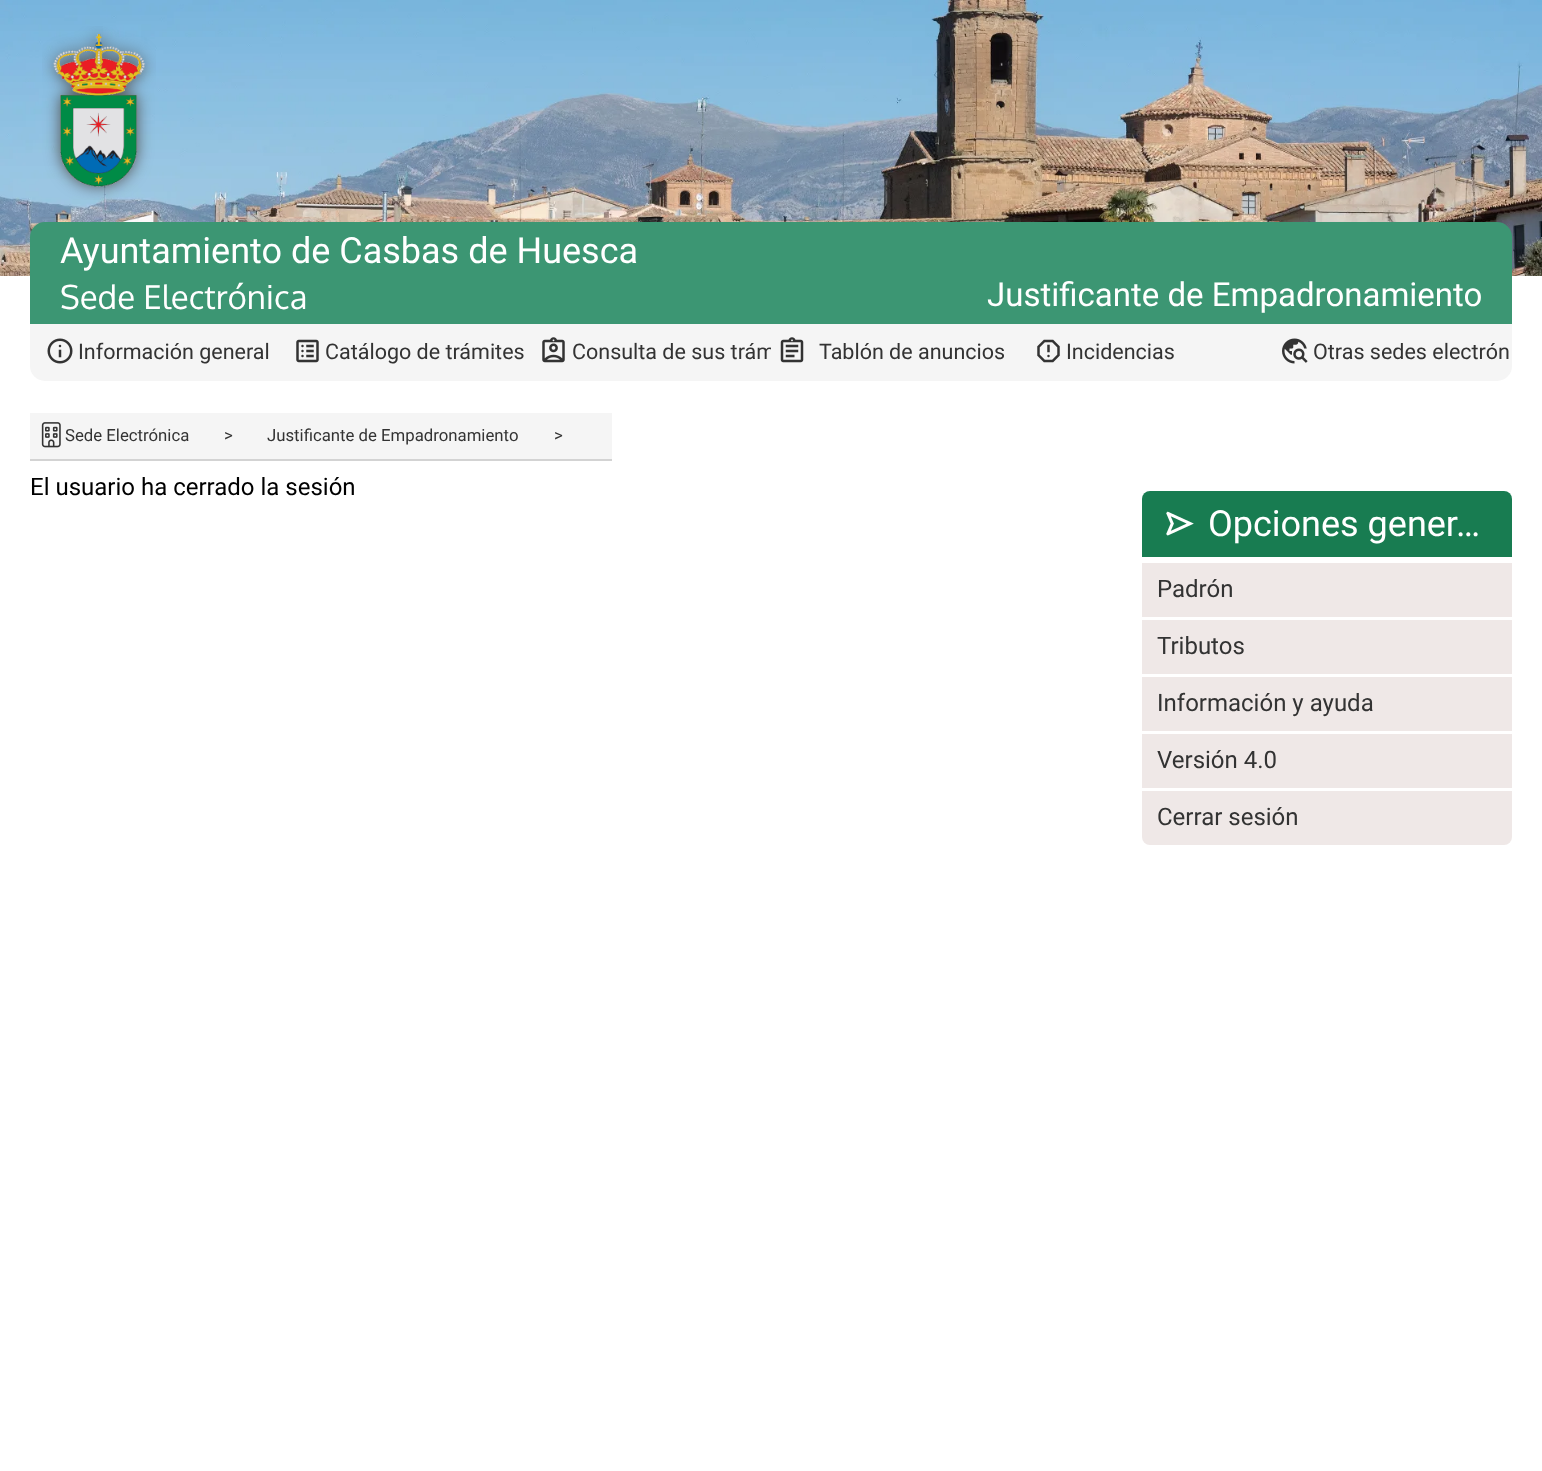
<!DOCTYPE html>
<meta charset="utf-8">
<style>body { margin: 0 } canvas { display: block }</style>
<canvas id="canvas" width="1542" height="1471"></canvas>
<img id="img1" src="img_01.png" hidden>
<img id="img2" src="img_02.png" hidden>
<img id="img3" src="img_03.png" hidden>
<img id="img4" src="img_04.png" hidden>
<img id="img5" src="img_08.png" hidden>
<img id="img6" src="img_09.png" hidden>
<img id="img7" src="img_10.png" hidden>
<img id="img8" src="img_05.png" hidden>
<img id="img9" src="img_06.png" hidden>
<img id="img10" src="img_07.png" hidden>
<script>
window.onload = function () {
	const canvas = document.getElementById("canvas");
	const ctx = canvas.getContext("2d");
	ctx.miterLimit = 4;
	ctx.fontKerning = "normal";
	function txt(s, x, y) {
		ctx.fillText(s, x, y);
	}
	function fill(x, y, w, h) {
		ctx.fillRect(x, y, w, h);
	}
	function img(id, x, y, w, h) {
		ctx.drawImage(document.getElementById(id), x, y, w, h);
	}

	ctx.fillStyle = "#FFFFFF";
	fill(0, 0, 1542, 1471);
	img("img1", 0, 0, 1542, 276);
	img("img2", 42, 26, 114, 174);
	ctx.fillStyle = "#3C9673";
	ctx.beginPath();
	ctx.roundRect(30, 222, 1482, 51, [15, 15, 0, 0]);
	ctx.fill();
	fill(30, 273, 1482, 51);
	ctx.fillStyle = "#F5F5F5";
	ctx.beginPath();
	ctx.roundRect(30, 324, 248, 57, [0, 0, 0, 15]);
	ctx.fill();
	img("img3", 47, 338, 26, 26);
	fill(278, 324, 246, 57);
	img("img4", 296, 339, 23, 24);
	ctx.beginPath();
	ctx.roundRect(1265, 324, 247, 57, [0, 0, 15, 0]);
	ctx.fill();
	img("img5", 1282, 338, 26, 26);
	fill(30, 413, 582, 46);
	ctx.fillStyle = "#D3D3D3";
	fill(30, 459, 582, 2);
	img("img6", 41, 422, 20, 26);
	ctx.fillStyle = "#187C51";
	ctx.beginPath();
	ctx.roundRect(1142, 491, 370, 66, [8, 8, 0, 0]);
	ctx.fill();
	img("img7", 1166, 511, 28, 25);
	ctx.fillStyle = "#EFE8E7";
	ctx.beginPath();
	ctx.roundRect(1142, 563, 370, 282, [0, 0, 8, 8]);
	ctx.fill();
	ctx.fillStyle = "#FFFFFF";
	fill(1142, 617, 370, 3);
	fill(1142, 674, 370, 3);
	fill(1142, 731, 370, 3);
	fill(1142, 788, 370, 3);
	ctx.font = "36px Roboto";
	txt("Ayuntamiento de Casbas de Huesca", 60, 263);
	ctx.font = "33px Oxygen";
	txt("Sede Electrónica", 60, 309);
	ctx.font = "33px Roboto";
	txt("Justificante de Empadronamiento", 987, 306);
	ctx.font = "21.5px Roboto";
	ctx.fillStyle = "#333333";
	txt("Información general", 78, 359);
	txt("Catálogo de trámites", 325, 359);
	ctx.fillStyle = "#F5F5F5";
	fill(524, 324, 247, 57);
	img("img8", 542, 337, 23, 26);
	ctx.fillStyle = "#333333";
	txt("Consulta de sus trám", 572, 359);
	ctx.fillStyle = "#F5F5F5";
	fill(771, 324, 494, 57);
	img("img9", 780, 337, 24, 26);
	ctx.fillStyle = "#333333";
	txt("Tablón de anuncios", 819, 359);
	img("img10", 1037, 339, 23, 24);
	txt("Incidencias", 1066, 359);
	txt("Otras sedes electrón", 1313, 359);
	ctx.font = "16.75px Roboto";
	txt("Sede Electrónica", 65, 441);
	txt(">", 224, 441);
	txt("Justificante de Empadronamiento", 267, 441);
	txt(">", 554, 441);
	ctx.font = "24px Roboto";
	ctx.fillStyle = "#000000";
	txt("El usuario ha cerrado la sesión", 30, 495);
	ctx.font = "36px Roboto";
	ctx.fillStyle = "#FFFFFF";
	txt("Opciones gener…", 1208, 536);
	ctx.font = "24px Roboto";
	ctx.fillStyle = "#333333";
	txt("Padrón", 1157, 597);
	txt("Tributos", 1157, 654);
	txt("Información y ayuda", 1157, 711);
	txt("Versión 4.0", 1157, 768);
	txt("Cerrar sesión", 1157, 825);
};
</script>
